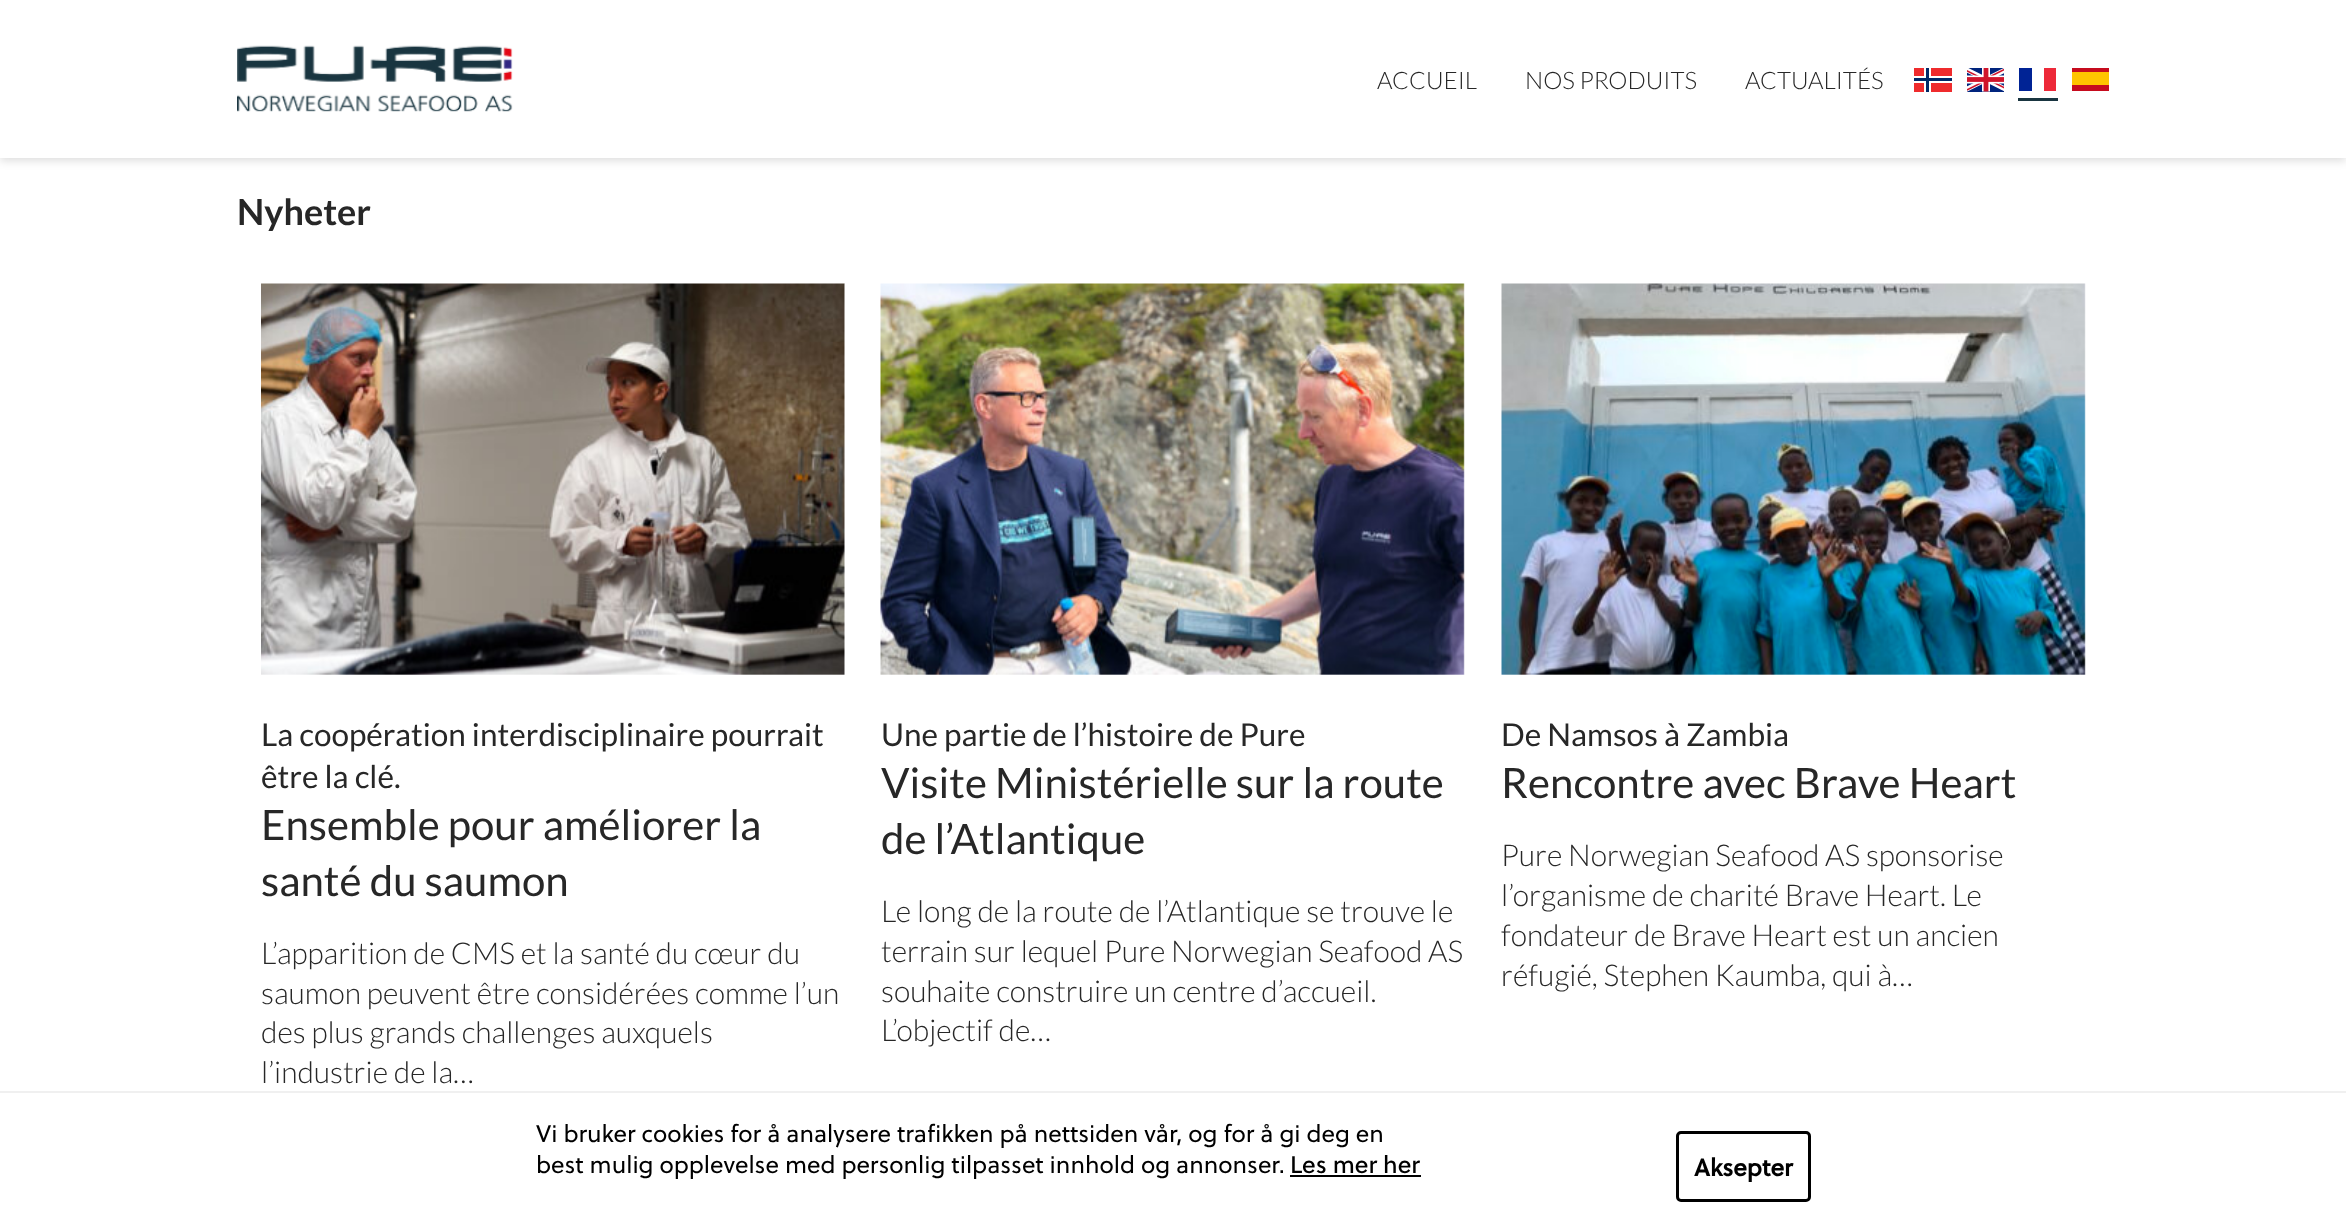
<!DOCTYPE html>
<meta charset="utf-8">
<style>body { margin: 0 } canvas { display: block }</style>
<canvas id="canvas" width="2346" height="1224"></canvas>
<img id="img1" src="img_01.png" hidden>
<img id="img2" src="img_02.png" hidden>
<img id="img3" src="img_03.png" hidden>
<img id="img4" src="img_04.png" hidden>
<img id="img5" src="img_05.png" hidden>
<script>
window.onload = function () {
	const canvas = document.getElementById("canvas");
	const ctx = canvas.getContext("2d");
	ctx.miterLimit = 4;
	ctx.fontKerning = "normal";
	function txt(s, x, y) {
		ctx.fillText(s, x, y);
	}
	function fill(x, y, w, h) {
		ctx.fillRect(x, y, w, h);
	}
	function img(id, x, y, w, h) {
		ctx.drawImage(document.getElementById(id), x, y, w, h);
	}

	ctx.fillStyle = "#FFFFFF";
	fill(0, 0, 2346, 1224);
	ctx.fillStyle = "rgba(0, 0, 0, 0.13)";
	ctx.filter = "blur(4px)";
	ctx.beginPath();
	ctx.rect(0, 3, 2346, 158);
	ctx.fill();
	ctx.filter = "none";
	ctx.fillStyle = "#FFFFFF";
	fill(0, 0, 2346, 158);
	img("img1", 237, 45, 276, 67);
	ctx.fillStyle = "#EF2B2D";
	fill(1914, 68, 38, 24);
	ctx.fillStyle = "#FFFFFF";
	fill(1924, 68, 7, 24);
	fill(1914, 76, 38, 7);
	ctx.fillStyle = "#002868";
	fill(1926, 68, 3, 24);
	fill(1914, 78, 38, 3);
	img("img2", 1967, 68, 37, 24);
	ctx.fillStyle = "#ED2939";
	fill(2044, 68, 12, 23);
	ctx.fillStyle = "#002395";
	fill(2019, 68, 13, 23);
	ctx.fillStyle = "#193540";
	fill(2018, 98, 40, 3);
	ctx.fillStyle = "#C60B1E";
	fill(2072, 68, 37, 23);
	ctx.fillStyle = "#FFC400";
	fill(2072, 72, 37, 13);
	img("img3", 261, 283, 584, 392);
	img("img4", 880, 283, 585, 392);
	img("img5", 1501, 283, 585, 392);
	ctx.fillStyle = "#F0F0F0";
	fill(0, 1091, 2346, 2);
	ctx.fillStyle = "#000000";
	fill(1290, 1175, 131, 2);
	ctx.beginPath();
	ctx.roundRect(1677.5, 1132.5, 132, 68, 3.5);
	ctx.strokeStyle = "#000000";
	ctx.lineWidth = 3;
	ctx.stroke();
	ctx.font = "300 24px Lato";
	ctx.fillStyle = "#272727";
	txt("ACCUEIL", 1377, 89);
	txt("NOS PRODUITS", 1525, 89);
	txt("ACTUALITÉS", 1745, 89);
	ctx.font = "bold 36px Lato";
	txt("Nyheter", 237, 225);
	ctx.font = "31.5px Lato";
	txt("La coopération interdisciplinaire pourrait", 261, 746);
	txt("être la clé.", 261, 788);
	ctx.font = "42px Lato";
	txt("Ensemble pour améliorer la", 261, 840);
	txt("santé du saumon", 261, 896);
	ctx.font = "300 30px Lato";
	txt("L’apparition de CMS et la santé du cœur du", 261, 964);
	txt("saumon peuvent être considérées comme l’un", 261, 1004);
	txt("des plus grands challenges auxquels", 261, 1043);
	txt("l’industrie de la…", 261, 1083);
	ctx.font = "31.5px Lato";
	txt("Une partie de l’histoire de Pure", 881, 746);
	ctx.font = "42px Lato";
	txt("Visite Ministérielle sur la route", 881, 798);
	txt("de l’Atlantique", 881, 854);
	ctx.font = "300 30px Lato";
	txt("Le long de la route de l’Atlantique se trouve le", 881, 922);
	txt("terrain sur lequel Pure Norwegian Seafood AS", 881, 962);
	txt("souhaite construire un centre d’accueil.", 881, 1002);
	txt("L’objectif de…", 881, 1041);
	ctx.font = "31.5px Lato";
	txt("De Namsos à Zambia", 1501, 746);
	ctx.font = "42px Lato";
	txt("Rencontre avec Brave Heart", 1501, 798);
	ctx.font = "300 30px Lato";
	txt("Pure Norwegian Seafood AS sponsorise", 1501, 866);
	txt("l’organisme de charité Brave Heart. Le", 1501, 906);
	txt("fondateur de Brave Heart est un ancien", 1501, 946);
	txt("réfugié, Stephen Kaumba, qui à…", 1501, 986);
	ctx.font = "24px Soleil";
	ctx.fillStyle = "#000000";
	txt("Vi bruker cookies for å analysere trafikken på nettsiden vår, og for å gi deg en", 536, 1142);
	txt("best mulig opplevelse med personlig tilpasset innhold og annonser.", 536, 1173);
	ctx.font = "24px 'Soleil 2'";
	txt("Les mer her", 1290, 1173);
	ctx.font = "bold 24px Soleil";
	txt("Aksepter", 1694, 1176);
};
</script>
